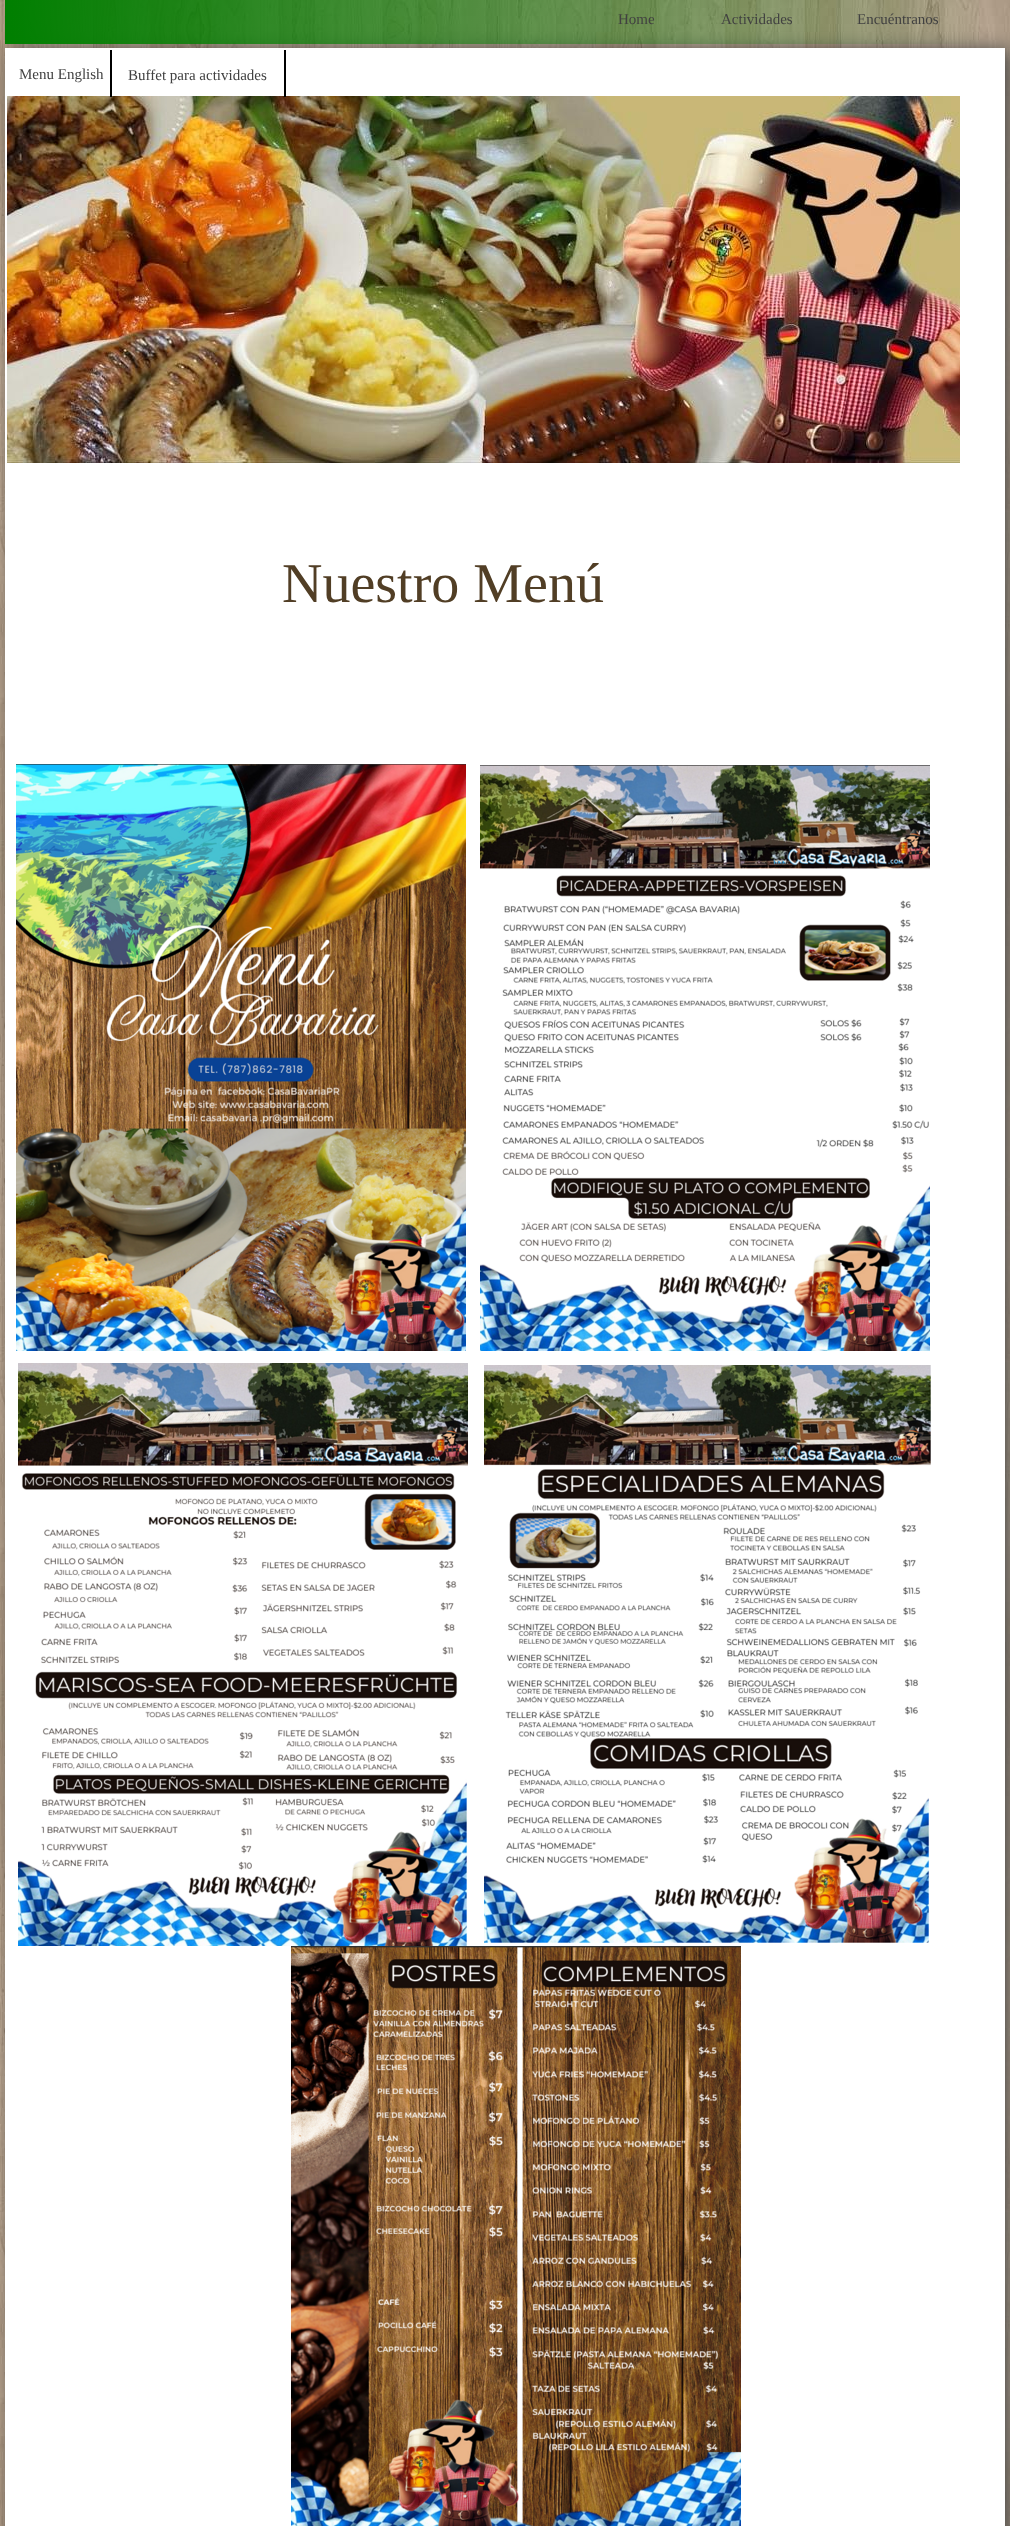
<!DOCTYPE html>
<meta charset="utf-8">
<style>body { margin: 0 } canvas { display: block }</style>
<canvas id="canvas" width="1010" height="2526"></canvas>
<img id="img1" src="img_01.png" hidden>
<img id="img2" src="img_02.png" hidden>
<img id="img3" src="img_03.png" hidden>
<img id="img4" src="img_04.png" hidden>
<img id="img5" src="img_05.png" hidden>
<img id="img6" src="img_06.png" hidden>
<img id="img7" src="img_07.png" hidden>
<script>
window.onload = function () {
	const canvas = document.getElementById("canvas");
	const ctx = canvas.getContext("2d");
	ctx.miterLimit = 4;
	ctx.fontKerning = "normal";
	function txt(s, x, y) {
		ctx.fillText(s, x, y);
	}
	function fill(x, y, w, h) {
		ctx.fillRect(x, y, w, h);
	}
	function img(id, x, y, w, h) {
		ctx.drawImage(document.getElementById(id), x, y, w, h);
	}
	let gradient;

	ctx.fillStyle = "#FFFFFF";
	fill(0, 0, 1010, 2526);
	img("img1", 0, 0, 1010, 2526);
	ctx.fillStyle = "#444444";
	ctx.filter = "blur(9.5px)";
	ctx.beginPath();
	ctx.rect(10, 50, 1000, 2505);
	ctx.fill();
	ctx.filter = "none";
	ctx.fillStyle = "#FFFFFF";
	fill(5, 48, 1000, 2478);
	gradient = ctx.createLinearGradient(5, 21, 1000, 20);
	gradient.addColorStop(0, "#007F00");
	gradient.addColorStop(1, "rgba(0, 127, 0, 0)");
	ctx.fillStyle = gradient;
	fill(5, 0, 974, 44);
	img("img2", 7, 96, 953, 367);
	ctx.fillStyle = "#000000";
	fill(110, 50, 2, 47);
	fill(284, 50, 2, 47);
	img("img3", 16, 764, 450, 587);
	img("img4", 480, 765, 450, 586);
	img("img5", 18, 1363, 450, 583);
	img("img6", 484, 1365, 447, 578);
	img("img7", 291, 1946, 450, 580);
	ctx.font = "15px Liberation Serif";
	ctx.fillStyle = "#414141";
	txt("Home", 618, 24);
	txt("Actividades", 721, 24);
	txt("Encuéntranos", 857, 24);
	txt("Menu English", 19, 79);
	txt("Buffet para actividades", 128, 80);
	ctx.font = "56px Liberation Serif";
	ctx.fillStyle = "#513E25";
	txt("Nuestro Menú", 282, 602);
};
</script>
